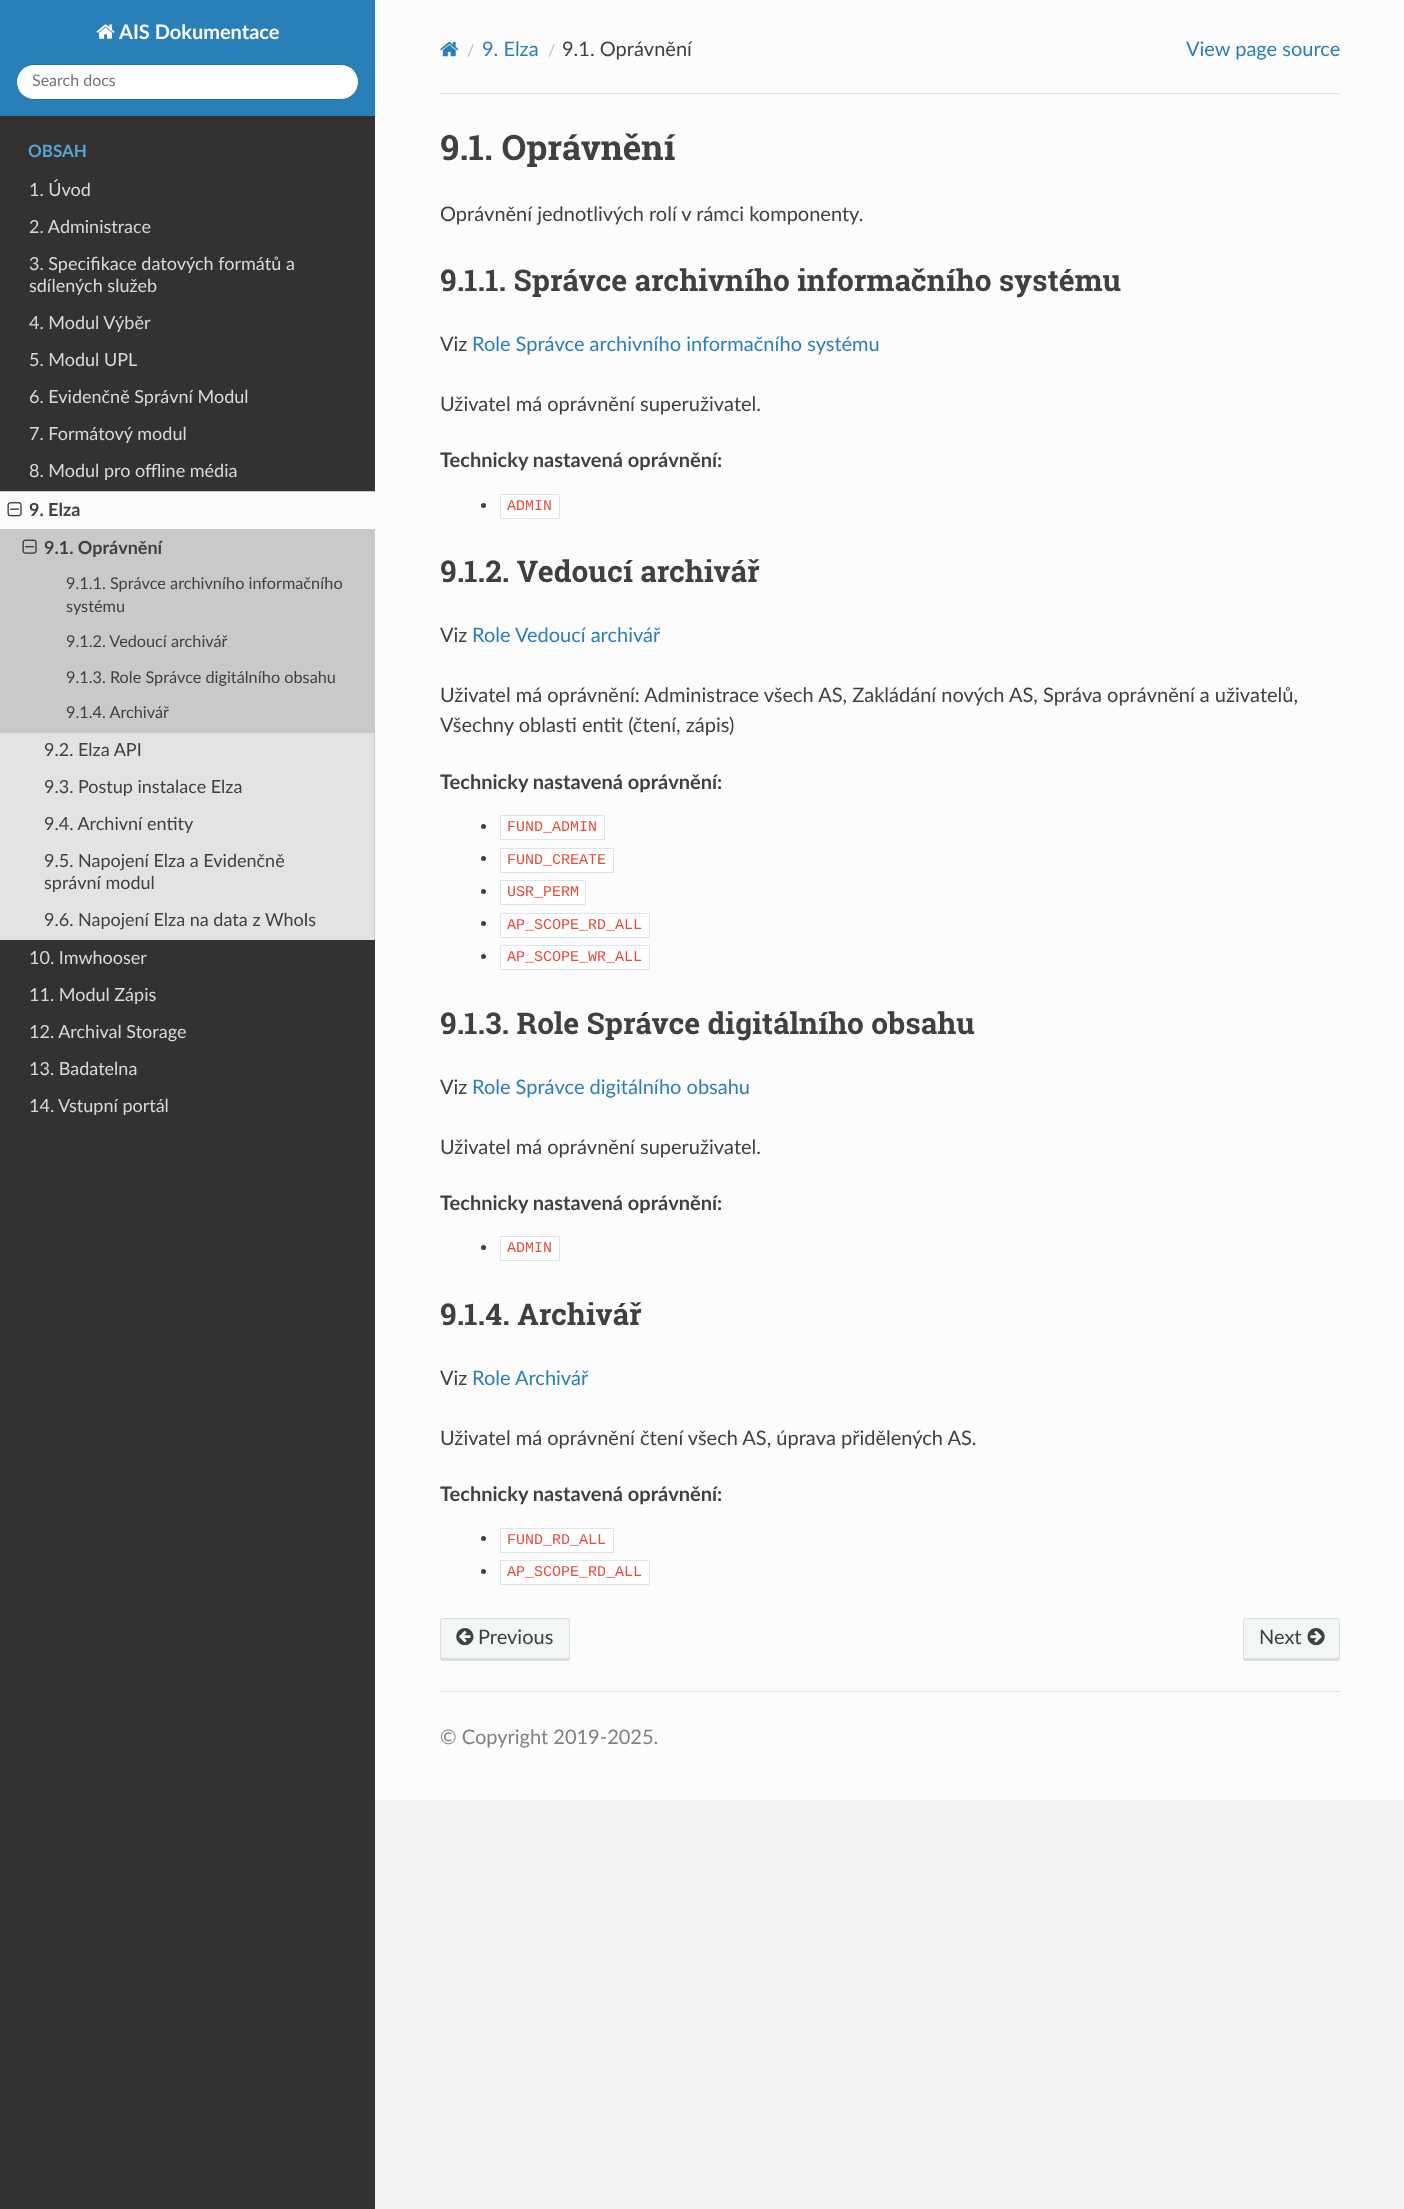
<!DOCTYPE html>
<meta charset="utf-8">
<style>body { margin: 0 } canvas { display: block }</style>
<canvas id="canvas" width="1404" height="2209"></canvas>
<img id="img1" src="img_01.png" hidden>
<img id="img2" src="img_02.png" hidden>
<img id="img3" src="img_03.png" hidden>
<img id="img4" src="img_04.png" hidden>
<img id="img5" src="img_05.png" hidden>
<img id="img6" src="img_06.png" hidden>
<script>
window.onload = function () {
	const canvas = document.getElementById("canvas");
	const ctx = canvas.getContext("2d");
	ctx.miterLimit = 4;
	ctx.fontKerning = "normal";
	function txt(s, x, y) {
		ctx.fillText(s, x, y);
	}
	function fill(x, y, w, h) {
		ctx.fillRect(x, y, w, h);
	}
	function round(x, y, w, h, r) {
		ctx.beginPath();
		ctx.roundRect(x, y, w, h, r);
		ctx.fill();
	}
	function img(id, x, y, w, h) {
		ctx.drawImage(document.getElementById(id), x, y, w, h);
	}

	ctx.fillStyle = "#F3F3F3";
	fill(0, 0, 1404, 2209);
	ctx.fillStyle = "#343131";
	fill(0, 116, 375, 2093);
	ctx.fillStyle = "#2980B9";
	fill(0, 0, 375, 116);
	img("img1", 96, 24, 19, 15);
	ctx.fillStyle = "#FFFFFF";
	ctx.beginPath();
	ctx.roundRect(16.5, 64.5, 342, 35, 17.5);
	ctx.fill();
	ctx.strokeStyle = "#2472A4";
	ctx.stroke();
	ctx.fillStyle = "#E3E3E3";
	fill(0, 733, 374, 207);
	ctx.fillStyle = "#FCFCFC";
	fill(0, 492, 375, 37);
	ctx.fillStyle = "#C9C9C9";
	fill(0, 491, 375, 1);
	fill(0, 529, 375, 204);
	img("img2", 7, 502, 15, 15);
	img("img3", 22, 539, 15, 15);
	fill(374, 733, 1, 207);
	ctx.fillStyle = "#FCFCFC";
	fill(375, 0, 1029, 1800);
	img("img4", 440, 41, 19, 16);
	ctx.fillStyle = "#E1E4E5";
	fill(440, 93, 900, 1);
	ctx.fillStyle = "#404040";
	ctx.beginPath();
	ctx.arc(483.5, 505.5, 2.5, 0, Math.PI * 2);
	ctx.fill();
	ctx.fillStyle = "#FFFFFF";
	ctx.beginPath();
	ctx.rect(500.5, 494.5, 59, 24);
	ctx.fill();
	ctx.strokeStyle = "#E1E4E5";
	ctx.stroke();
	ctx.fillStyle = "#404040";
	ctx.beginPath();
	ctx.arc(483.5, 826.5, 2.5, 0, Math.PI * 2);
	ctx.fill();
	ctx.fillStyle = "#FFFFFF";
	ctx.beginPath();
	ctx.rect(500.5, 815.5, 104, 24);
	ctx.fill();
	ctx.stroke();
	ctx.fillStyle = "#404040";
	ctx.beginPath();
	ctx.arc(483.5, 858.5, 2.5, 0, Math.PI * 2);
	ctx.fill();
	ctx.fillStyle = "#FFFFFF";
	ctx.beginPath();
	ctx.rect(500.5, 848.5, 113, 24);
	ctx.fill();
	ctx.stroke();
	ctx.fillStyle = "#404040";
	ctx.beginPath();
	ctx.arc(483.5, 891.5, 2.5, 0, Math.PI * 2);
	ctx.fill();
	ctx.fillStyle = "#FFFFFF";
	ctx.beginPath();
	ctx.rect(500.5, 880.5, 85, 24);
	ctx.fill();
	ctx.stroke();
	ctx.fillStyle = "#404040";
	ctx.beginPath();
	ctx.arc(483.5, 923.5, 2.5, 0, Math.PI * 2);
	ctx.fill();
	ctx.fillStyle = "#FFFFFF";
	ctx.beginPath();
	ctx.rect(500.5, 913.5, 149, 24);
	ctx.fill();
	ctx.stroke();
	ctx.fillStyle = "#404040";
	ctx.beginPath();
	ctx.arc(483.5, 956.5, 2.5, 0, Math.PI * 2);
	ctx.fill();
	ctx.fillStyle = "#FFFFFF";
	ctx.beginPath();
	ctx.rect(500.5, 945.5, 149, 24);
	ctx.fill();
	ctx.stroke();
	ctx.fillStyle = "#404040";
	ctx.beginPath();
	ctx.arc(483.5, 1247.5, 2.5, 0, Math.PI * 2);
	ctx.fill();
	ctx.fillStyle = "#FFFFFF";
	ctx.beginPath();
	ctx.rect(500.5, 1236.5, 59, 24);
	ctx.fill();
	ctx.stroke();
	ctx.fillStyle = "#404040";
	ctx.beginPath();
	ctx.arc(483.5, 1538.5, 2.5, 0, Math.PI * 2);
	ctx.fill();
	ctx.fillStyle = "#FFFFFF";
	ctx.beginPath();
	ctx.rect(500.5, 1528.5, 113, 24);
	ctx.fill();
	ctx.stroke();
	ctx.fillStyle = "#404040";
	ctx.beginPath();
	ctx.arc(483.5, 1571.5, 2.5, 0, Math.PI * 2);
	ctx.fill();
	ctx.fillStyle = "#FFFFFF";
	ctx.beginPath();
	ctx.rect(500.5, 1560.5, 149, 24);
	ctx.fill();
	ctx.stroke();
	ctx.fillStyle = "#F3F6F6";
	round(440, 1618, 130, 43, 2.5);
	ctx.fillStyle = "#DBDDDD";
	ctx.beginPath();
	ctx.moveTo(441, 1656);
	ctx.lineTo(441, 1659);
	ctx.bezierCurveTo(441, 1660, 441, 1660, 442, 1660);
	ctx.lineTo(568, 1660);
	ctx.bezierCurveTo(569, 1660, 569, 1660, 569, 1659);
	ctx.lineTo(569, 1656);
	ctx.lineTo(568, 1658);
	ctx.lineTo(442, 1658);
	ctx.closePath();
	ctx.fill();
	ctx.beginPath();
	ctx.roundRect(440.5, 1618.5, 129, 42, 2);
	ctx.strokeStyle = "#DBDDDD";
	ctx.stroke();
	img("img5", 456, 1628, 18, 18);
	ctx.fillStyle = "#F3F6F6";
	round(1243, 1618, 97, 43, 2.5);
	ctx.fillStyle = "#DBDDDD";
	ctx.beginPath();
	ctx.moveTo(1244, 1656);
	ctx.lineTo(1244, 1659);
	ctx.bezierCurveTo(1244, 1660, 1244, 1660, 1245, 1660);
	ctx.lineTo(1338, 1660);
	ctx.bezierCurveTo(1339, 1660, 1339, 1660, 1339, 1659);
	ctx.lineTo(1339, 1656);
	ctx.lineTo(1338, 1658);
	ctx.lineTo(1245, 1658);
	ctx.bezierCurveTo(1244, 1658, 1244, 1657, 1244, 1656);
	ctx.closePath();
	ctx.fill();
	ctx.beginPath();
	ctx.roundRect(1243.5, 1618.5, 96, 42, 2);
	ctx.stroke();
	img("img6", 1307, 1628, 18, 18);
	ctx.fillStyle = "#E1E4E5";
	fill(440, 1691, 900, 1);
	ctx.font = "bold 20px Lato";
	ctx.fillStyle = "#FCFCFC";
	txt("AIS Dokumentace", 119, 39);
	ctx.font = "16px Lato";
	ctx.fillStyle = "#757575";
	txt("Search docs", 32, 86);
	ctx.font = "bold 17px Lato";
	ctx.fillStyle = "#55A5D9";
	txt("OBSAH", 28, 157);
	ctx.font = "18px Lato";
	ctx.fillStyle = "#D9D9D9";
	txt("1. Úvod", 29, 196);
	txt("2. Administrace", 29, 233);
	txt("3. Specifikace datových formátů a", 29, 270);
	txt("sdílených služeb", 29, 292);
	txt("4. Modul Výběr", 29, 329);
	txt("5. Modul UPL", 29, 366);
	txt("6. Evidenčně Správní Modul", 29, 403);
	txt("7. Formátový modul", 29, 440);
	txt("8. Modul pro offline média", 29, 477);
	ctx.font = "bold 18px Lato";
	ctx.fillStyle = "#404040";
	txt("9. Elza", 29, 516);
	txt("9.1. Oprávnění", 44, 554);
	ctx.font = "16.25px Lato";
	txt("9.1.1. Správce archivního informačního", 66, 589);
	txt("systému", 66, 612);
	txt("9.1.2. Vedoucí archivář", 66, 647);
	txt("9.1.3. Role Správce digitálního obsahu", 66, 683);
	txt("9.1.4. Archivář", 66, 718);
	ctx.font = "18px Lato";
	txt("9.2. Elza API", 44, 756);
	txt("9.3. Postup instalace Elza", 44, 793);
	txt("9.4. Archivní entity", 44, 830);
	txt("9.5. Napojení Elza a Evidenčně", 44, 867);
	txt("správní modul", 44, 889);
	txt("9.6. Napojení Elza na data z WhoIs", 44, 926);
	ctx.fillStyle = "#D9D9D9";
	txt("10. Imwhooser", 29, 964);
	txt("11. Modul Zápis", 29, 1001);
	txt("12. Archival Storage", 29, 1038);
	txt("13. Badatelna", 29, 1075);
	txt("14. Vstupní portál", 29, 1112);
	ctx.font = "16px Lato";
	ctx.fillStyle = "#BBBBBB";
	txt("/", 467, 56);
	ctx.font = "20px Lato";
	ctx.fillStyle = "#2980B9";
	txt("9. Elza", 482, 56);
	ctx.font = "16px Lato";
	ctx.fillStyle = "#BBBBBB";
	txt("/", 548, 56);
	ctx.font = "20px Lato";
	ctx.fillStyle = "#404040";
	txt("9.1. Oprávnění", 562, 56);
	ctx.fillStyle = "#2980B9";
	txt("View page source", 1186, 56);
	ctx.font = "bold 35px Roboto Slab";
	ctx.fillStyle = "#404040";
	txt("9.1. Oprávnění", 440, 160);
	ctx.font = "20px Lato";
	txt("Oprávnění jednotlivých rolí v rámci komponenty.", 440, 221);
	ctx.font = "bold 30px Roboto Slab";
	txt("9.1.1. Správce archivního informačního systému", 440, 291);
	ctx.font = "20px Lato";
	txt("Viz", 440, 351);
	ctx.fillStyle = "#2980B9";
	txt("Role Správce archivního informačního systému", 472, 351);
	ctx.fillStyle = "#404040";
	txt("Uživatel má oprávnění superuživatel.", 440, 411);
	ctx.font = "bold 20px Lato";
	txt("Technicky nastavená oprávnění:", 440, 467);
	ctx.font = "15px Liberation Mono";
	ctx.fillStyle = "#E74C3C";
	txt("ADMIN", 507, 510);
	ctx.font = "bold 30px Roboto Slab";
	ctx.fillStyle = "#404040";
	txt("9.1.2. Vedoucí archivář", 440, 582);
	ctx.font = "20px Lato";
	txt("Viz", 440, 642);
	ctx.fillStyle = "#2980B9";
	txt("Role Vedoucí archivář", 472, 642);
	ctx.fillStyle = "#404040";
	txt("Uživatel má oprávnění: Administrace všech AS, Zakládání nových AS, Správa oprávnění a uživatelů,", 440, 702);
	txt("Všechny oblasti entit (čtení, zápis)", 440, 732);
	ctx.font = "bold 20px Lato";
	txt("Technicky nastavená oprávnění:", 440, 789);
	ctx.font = "15px Liberation Mono";
	ctx.fillStyle = "#E74C3C";
	txt("FUND_ADMIN", 507, 831);
	txt("FUND_CREATE", 507, 864);
	txt("USR_PERM", 507, 896);
	txt("AP_SCOPE_RD_ALL", 507, 929);
	txt("AP_SCOPE_WR_ALL", 507, 961);
	ctx.font = "bold 30px Roboto Slab";
	ctx.fillStyle = "#404040";
	txt("9.1.3. Role Správce digitálního obsahu", 440, 1034);
	ctx.font = "20px Lato";
	txt("Viz", 440, 1094);
	ctx.fillStyle = "#2980B9";
	txt("Role Správce digitálního obsahu", 472, 1094);
	ctx.fillStyle = "#404040";
	txt("Uživatel má oprávnění superuživatel.", 440, 1154);
	ctx.font = "bold 20px Lato";
	txt("Technicky nastavená oprávnění:", 440, 1210);
	ctx.font = "15px Liberation Mono";
	ctx.fillStyle = "#E74C3C";
	txt("ADMIN", 507, 1252);
	ctx.font = "bold 30px Roboto Slab";
	ctx.fillStyle = "#404040";
	txt("9.1.4. Archivář", 440, 1325);
	ctx.font = "20px Lato";
	txt("Viz", 440, 1385);
	ctx.fillStyle = "#2980B9";
	txt("Role Archivář", 472, 1385);
	ctx.fillStyle = "#404040";
	txt("Uživatel má oprávnění čtení všech AS, úprava přidělených AS.", 440, 1445);
	ctx.font = "bold 20px Lato";
	txt("Technicky nastavená oprávnění:", 440, 1501);
	ctx.font = "15px Liberation Mono";
	ctx.fillStyle = "#E74C3C";
	txt("FUND_RD_ALL", 507, 1544);
	txt("AP_SCOPE_RD_ALL", 507, 1576);
	ctx.font = "20px Lato";
	ctx.fillStyle = "#404040";
	txt("Previous", 478, 1644);
	txt("Next", 1259, 1644);
	ctx.fillStyle = "#808080";
	txt("© Copyright 2019-2025.", 440, 1744);
};
</script>
